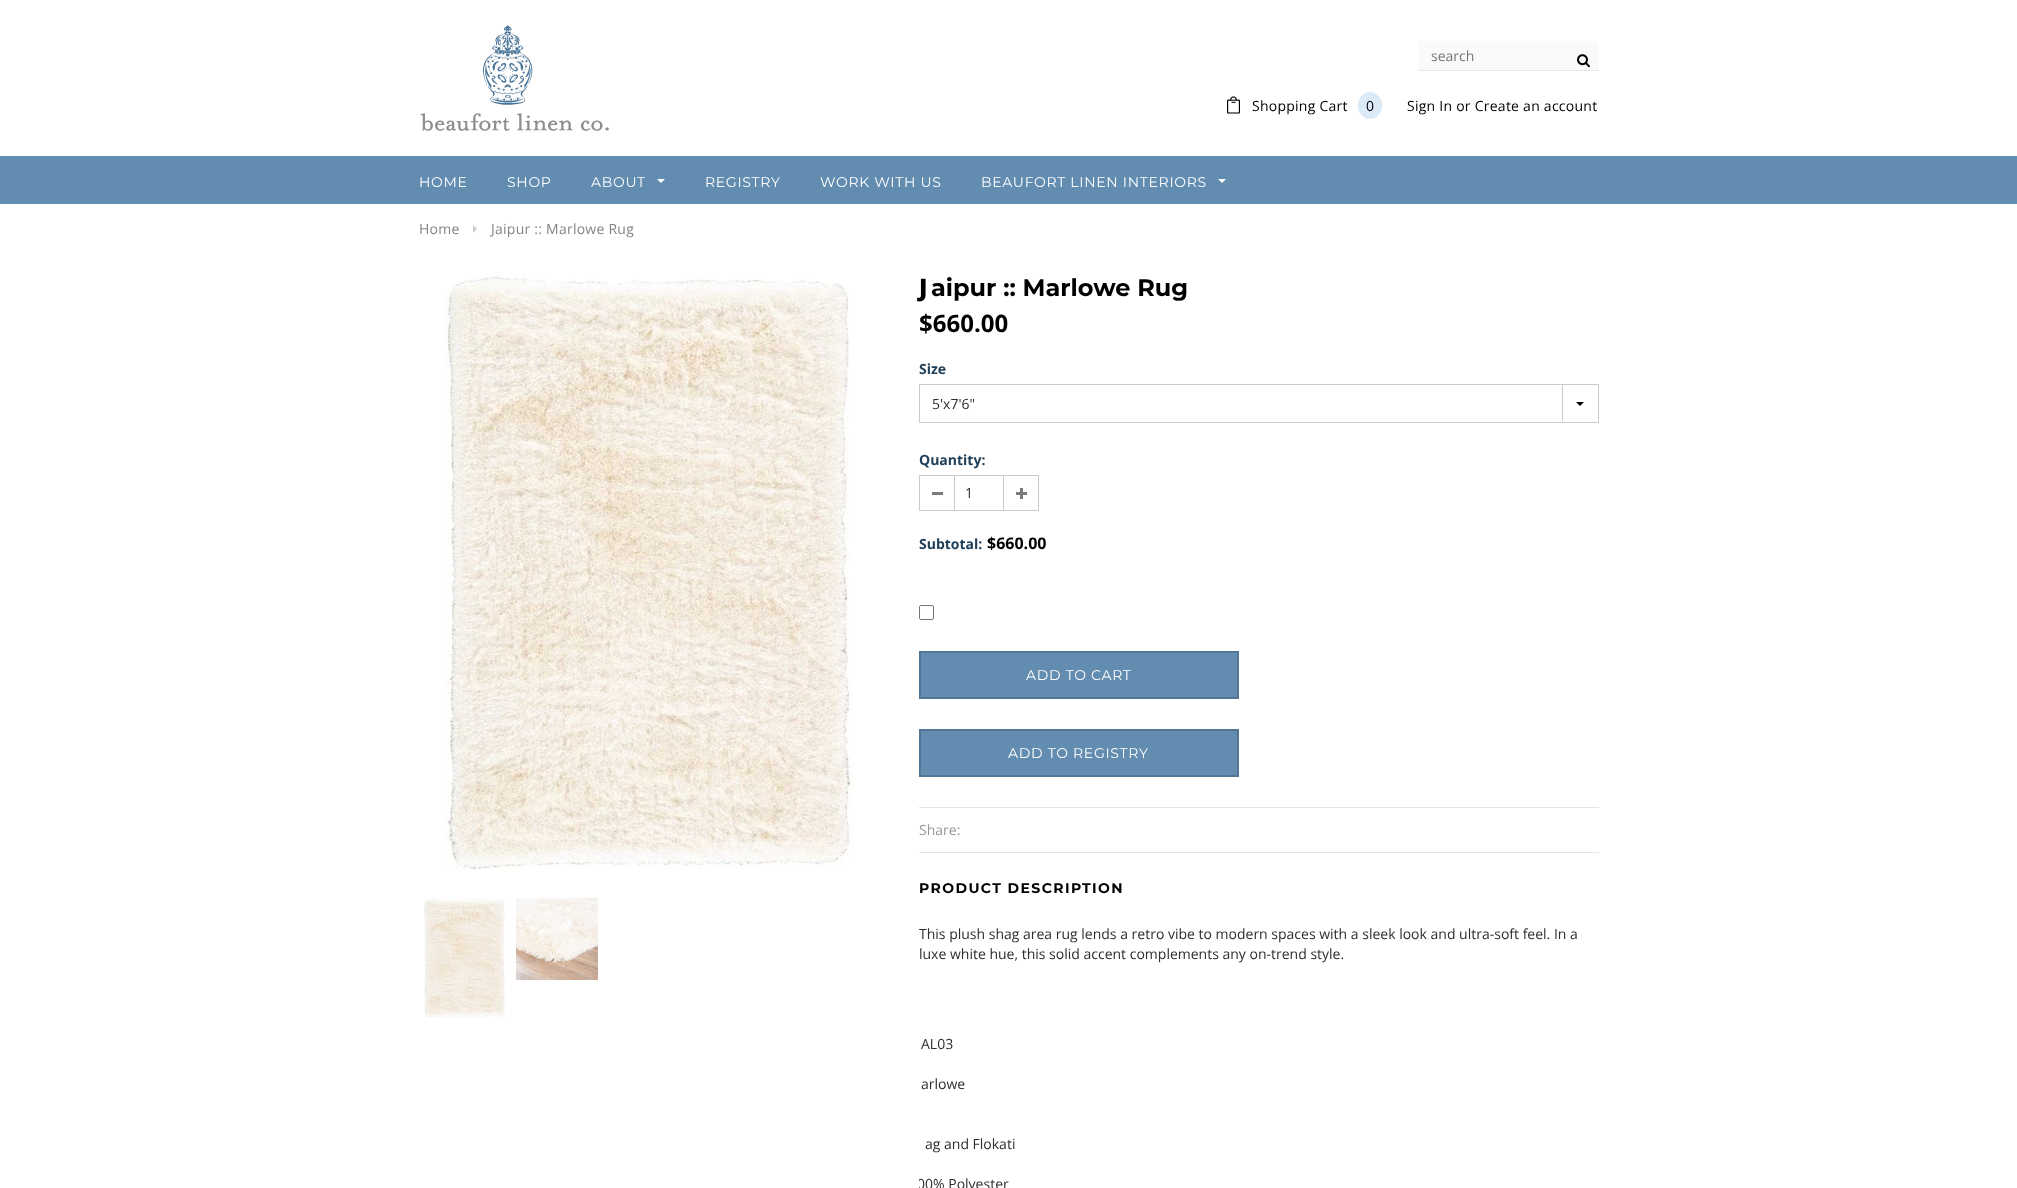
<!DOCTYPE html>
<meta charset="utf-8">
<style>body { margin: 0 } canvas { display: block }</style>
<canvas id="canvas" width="2017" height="1188"></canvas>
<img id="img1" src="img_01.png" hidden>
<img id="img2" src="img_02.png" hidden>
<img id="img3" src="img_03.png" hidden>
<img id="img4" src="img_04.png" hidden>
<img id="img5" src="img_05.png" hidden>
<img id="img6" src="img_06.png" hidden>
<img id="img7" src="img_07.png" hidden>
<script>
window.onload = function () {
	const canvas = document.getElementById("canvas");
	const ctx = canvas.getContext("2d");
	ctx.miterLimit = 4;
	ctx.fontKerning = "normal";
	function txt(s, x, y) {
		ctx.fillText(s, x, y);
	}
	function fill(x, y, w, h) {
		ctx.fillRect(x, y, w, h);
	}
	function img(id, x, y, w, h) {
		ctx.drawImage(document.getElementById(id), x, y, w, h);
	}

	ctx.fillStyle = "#FFFFFF";
	fill(0, 0, 2017, 1188);
	img("img1", 420, 25, 189, 106);
	ctx.fillStyle = "#FAFAFA";
	fill(1419, 41, 180, 29);
	ctx.fillStyle = "#E7E7E7";
	fill(1419, 70, 180, 1);
	img("img2", 1577, 54, 13, 14);
	img("img3", 1227, 96, 13, 18);
	ctx.fillStyle = "#DBEAF7";
	ctx.beginPath();
	ctx.ellipse(1370, 105.5, 12, 13.5, 0, 0, Math.PI * 2);
	ctx.fill();
	ctx.fillStyle = "#628CB0";
	fill(0, 156, 2017, 48);
	ctx.fillStyle = "#FFFFFF";
	ctx.beginPath();
	ctx.moveTo(657, 179);
	ctx.lineTo(665, 179);
	ctx.lineTo(661, 183);
	ctx.closePath();
	ctx.fill();
	ctx.beginPath();
	ctx.moveTo(1218, 179);
	ctx.lineTo(1226, 179);
	ctx.lineTo(1222, 183);
	ctx.closePath();
	ctx.fill();
	ctx.fillStyle = "#CBCBCB";
	ctx.beginPath();
	ctx.moveTo(473, 233);
	ctx.lineTo(473, 225);
	ctx.lineTo(477, 229);
	ctx.closePath();
	ctx.fill();
	img("img4", 444, 273, 410, 596);
	img("img5", 424, 898, 81, 120);
	img("img6", 516, 898, 82, 82);
	ctx.strokeStyle = "#CBCBCB";
	ctx.strokeRect(919.5, 384.5, 679, 38);
	fill(1562, 385, 1, 36);
	ctx.fillStyle = "#000000";
	ctx.beginPath();
	ctx.moveTo(1576, 402);
	ctx.lineTo(1584, 402);
	ctx.lineTo(1580, 406);
	ctx.closePath();
	ctx.fill();
	ctx.fillStyle = "#7B7B7B";
	fill(932, 492, 11, 3);
	ctx.fillStyle = "#CBCBCB";
	fill(919, 475, 35, 1);
	fill(919, 510, 35, 1);
	fill(919, 475, 1, 36);
	ctx.strokeRect(954.5, 475.5, 49, 35);
	img("img7", 1016, 488, 11, 11);
	fill(1004, 475, 35, 1);
	fill(1038, 475, 1, 36);
	fill(1004, 510, 35, 1);
	ctx.beginPath();
	ctx.roundRect(919.5, 605.5, 14, 14, 1.5);
	ctx.strokeStyle = "#767676";
	ctx.stroke();
	ctx.fillStyle = "#628CB0";
	ctx.beginPath();
	ctx.rect(920, 652, 318, 46);
	ctx.fill();
	ctx.strokeStyle = "#527694";
	ctx.lineWidth = 2;
	ctx.stroke();
	ctx.beginPath();
	ctx.rect(920, 730, 318, 46);
	ctx.fill();
	ctx.stroke();
	ctx.fillStyle = "#E3E3E3";
	fill(919, 807, 680, 1);
	fill(919, 852, 680, 1);
	ctx.font = "14px Open Sans";
	ctx.fillStyle = "#757575";
	txt("search", 1431, 61);
	ctx.letterSpacing = "0.25px";
	ctx.fillStyle = "#000000";
	txt("Shopping Cart", 1252, 111);
	txt("0", 1366, 111);
	txt("Sign In or Create an account", 1407, 111);
	ctx.letterSpacing = "0.7px";
	ctx.font = "14px Montserrat";
	ctx.fillStyle = "#FFFFFF";
	txt("HOME", 419, 187);
	txt("SHOP", 507, 187);
	txt("ABOUT", 591, 187);
	txt("REGISTRY", 705, 187);
	txt("WORK WITH US", 820, 187);
	txt("BEAUFORT LINEN INTERIORS", 981, 187);
	ctx.letterSpacing = "0.25px";
	ctx.font = "14px Open Sans";
	ctx.fillStyle = "#848484";
	txt("Home", 419, 234);
	txt("Jaipur :: Marlowe Rug", 491, 234);
	ctx.letterSpacing = "0px";
	ctx.font = "900 24px Noto Sans";
	ctx.fillStyle = "#000000";
	txt("J", 919, 296);
	ctx.font = "bold 24px Montserrat";
	txt("aipur :: Marlowe Rug", 931, 296);
	ctx.font = "bold 24px Open Sans";
	txt("$660.00", 919, 332);
	ctx.font = "bold 14px Open Sans";
	ctx.fillStyle = "#21405A";
	txt("Size", 919, 374);
	ctx.font = "14px Open Sans";
	ctx.fillStyle = "#2D2D2D";
	txt("5'x7'6\"", 932, 409);
	ctx.font = "bold 14px Open Sans";
	ctx.fillStyle = "#21405A";
	txt("Quantity:", 919, 465);
	ctx.font = "14px Open Sans";
	ctx.fillStyle = "#2D2D2D";
	txt("1", 965, 498);
	ctx.font = "bold 14px Open Sans";
	ctx.fillStyle = "#21405A";
	txt("Subtotal:", 919, 549);
	ctx.font = "bold 16px Open Sans";
	ctx.fillStyle = "#000000";
	txt("$660.00", 987, 549);
	ctx.letterSpacing = "0.7px";
	ctx.font = "14px Montserrat";
	ctx.fillStyle = "#FFFFFF";
	txt("ADD TO CART", 1026, 680);
	txt("ADD TO REGISTRY", 1008, 758);
	ctx.letterSpacing = "0px";
	ctx.font = "14px Open Sans";
	ctx.fillStyle = "#969696";
	txt("Share:", 919, 835);
	ctx.letterSpacing = "1.4px";
	ctx.font = "bold 14px Montserrat";
	ctx.fillStyle = "#000000";
	txt("PRODUCT DESCRIPTION", 919, 893);
	ctx.letterSpacing = "0px";
	ctx.font = "14px Open Sans";
	ctx.fillStyle = "#2D2D2D";
	txt("This plush shag area rug lends a retro vibe to modern spaces with a sleek look and ultra-soft feel. In a", 919, 939);
	txt("luxe white hue, this solid accent complements any on-trend style.", 919, 959);
	txt("AL03", 921, 1049);
	txt("arlowe", 921, 1089);
	txt("ag and Flokati", 925, 1149);
	ctx.save();
	ctx.beginPath();
	ctx.rect(919, 868, 680, 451);
	ctx.clip();
	txt("00% Polyester", 917, 1189);
	ctx.restore();
};
</script>
